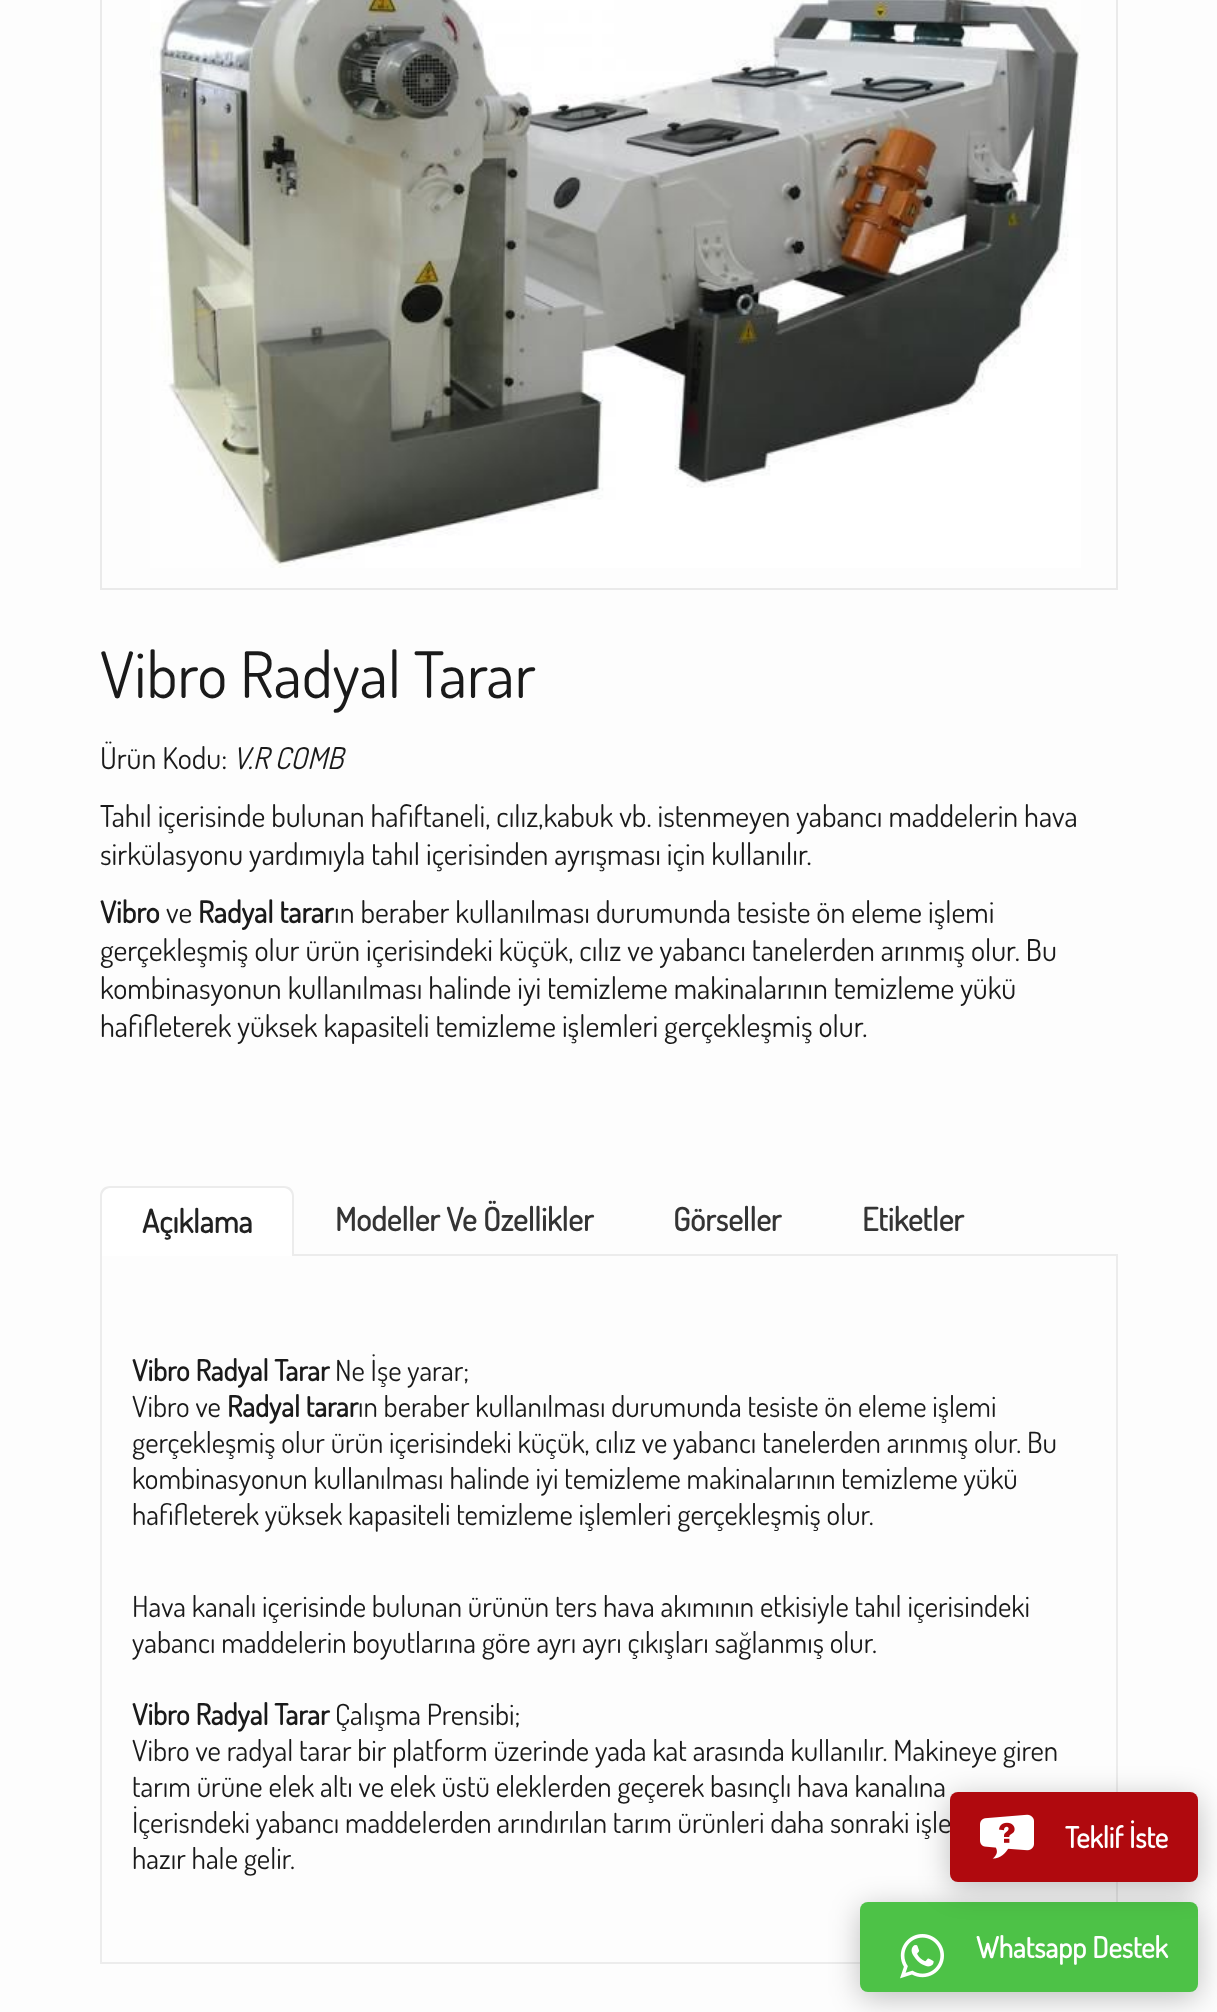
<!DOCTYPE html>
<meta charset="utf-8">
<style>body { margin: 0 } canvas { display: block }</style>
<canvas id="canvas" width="1217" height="2012"></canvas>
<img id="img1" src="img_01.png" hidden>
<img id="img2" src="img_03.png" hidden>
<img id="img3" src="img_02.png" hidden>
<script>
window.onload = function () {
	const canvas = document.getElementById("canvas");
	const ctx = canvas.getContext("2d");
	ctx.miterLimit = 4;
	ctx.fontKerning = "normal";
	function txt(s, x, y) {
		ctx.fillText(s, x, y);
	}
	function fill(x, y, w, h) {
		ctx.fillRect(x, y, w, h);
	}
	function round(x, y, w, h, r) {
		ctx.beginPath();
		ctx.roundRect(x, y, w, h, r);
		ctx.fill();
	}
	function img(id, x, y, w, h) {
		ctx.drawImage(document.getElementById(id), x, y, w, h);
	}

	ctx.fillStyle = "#FDFDFD";
	fill(0, 0, 1217, 2012);
	ctx.strokeStyle = "#EAEAEA";
	ctx.lineWidth = 2;
	ctx.strokeRect(101, -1, 1016, 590);
	img("img1", 150, 0, 931, 568);
	ctx.strokeStyle = "#ECECEC";
	ctx.strokeRect(101, 1255, 1016, 708);
	ctx.fillStyle = "#FFFFFF";
	ctx.beginPath();
	ctx.roundRect(100, 1186, 194, 70, [10, 10, 0, 0]);
	ctx.fill();
	ctx.fillStyle = "#ECECEC";
	ctx.beginPath();
	ctx.moveTo(110, 1186);
	ctx.lineTo(284, 1186);
	ctx.bezierCurveTo(290, 1186, 294, 1190, 294, 1196);
	ctx.lineTo(294, 1256);
	ctx.lineTo(100, 1256);
	ctx.lineTo(100, 1196);
	ctx.bezierCurveTo(100, 1190, 104, 1186, 110, 1186);
	ctx.closePath();
	ctx.moveTo(110, 1188);
	ctx.lineTo(284, 1188);
	ctx.bezierCurveTo(288, 1188, 292, 1192, 292, 1196);
	ctx.lineTo(292, 1256);
	ctx.lineTo(102, 1256);
	ctx.lineTo(102, 1196);
	ctx.bezierCurveTo(102, 1192, 106, 1188, 110, 1188);
	ctx.closePath();
	ctx.fill("evenodd");
	ctx.fillStyle = "rgba(0, 0, 0, 0.25)";
	ctx.filter = "blur(15px)";
	ctx.beginPath();
	ctx.roundRect(860, 1908, 338, 90, 8);
	ctx.fill();
	ctx.filter = "none";
	ctx.fillStyle = "#4DC247";
	round(860, 1902, 338, 90, 8);
	ctx.fillStyle = "rgba(0, 0, 0, 0.25)";
	ctx.filter = "blur(15px)";
	ctx.beginPath();
	ctx.roundRect(950, 1798, 248, 90, 8);
	ctx.fill();
	ctx.filter = "none";
	img("img2", 900, 1934, 44, 45);
	ctx.font = "64px Dosis";
	ctx.fillStyle = "#1A1A1A";
	txt("Vibro Radyal Tarar", 100, 698);
	ctx.font = "30px Dosis";
	txt("Ürün Kodu:", 100, 769);
	ctx.font = "italic 30px Dosis";
	txt("V.R COMB", 233, 769);
	ctx.font = "30px Dosis";
	txt("Tahıl içerisinde bulunan hafiftaneli, cılız,kabuk vb. istenmeyen yabancı maddelerin hava", 100, 827);
	txt("sirkülasyonu yardımıyla tahıl içerisinden ayrışması için kullanılır.", 100, 865);
	ctx.font = "bold 30px Dosis";
	txt("Vibro", 100, 923);
	ctx.font = "30px Dosis";
	txt("ve", 166, 923);
	ctx.font = "bold 30px Dosis";
	txt("Radyal tarar", 198, 923);
	ctx.font = "30px Dosis";
	txt("ın beraber kullanılması durumunda tesiste ön eleme işlemi", 334, 923);
	txt("gerçekleşmiş olur ürün içerisindeki küçük, cılız ve yabancı tanelerden arınmış olur. Bu", 100, 961);
	txt("kombinasyonun kullanılması halinde iyi temizleme makinalarının temizleme yükü", 100, 999);
	txt("hafifleterek yüksek kapasiteli temizleme işlemleri gerçekleşmiş olur.", 100, 1037);
	ctx.font = "bold 32px Dosis";
	ctx.fillStyle = "#222222";
	txt("Açıklama", 142, 1233);
	ctx.fillStyle = "#343434";
	txt("Modeller Ve Özellikler", 335, 1231);
	txt("Görseller", 673, 1231);
	txt("Etiketler", 862, 1231);
	ctx.font = "bold 29px Dosis";
	ctx.fillStyle = "#1A1A1A";
	txt("Vibro Radyal Tarar", 132, 1381);
	ctx.font = "29px Dosis";
	txt("Ne İşe yarar;", 335, 1381);
	txt("Vibro ve", 132, 1417);
	ctx.font = "bold 29px Dosis";
	txt("Radyal tarar", 227, 1417);
	ctx.font = "29px Dosis";
	txt("ın beraber kullanılması durumunda tesiste ön eleme işlemi", 358, 1417);
	txt("gerçekleşmiş olur ürün içerisindeki küçük, cılız ve yabancı tanelerden arınmış olur. Bu", 132, 1453);
	txt("kombinasyonun kullanılması halinde iyi temizleme makinalarının temizleme yükü", 132, 1489);
	txt("hafifleterek yüksek kapasiteli temizleme işlemleri gerçekleşmiş olur.", 132, 1525);
	txt("Hava kanalı içerisinde bulunan ürünün ters hava akımının etkisiyle tahıl içerisindeki", 132, 1617);
	txt("yabancı maddelerin boyutlarına göre ayrı ayrı çıkışları sağlanmış olur.", 132, 1653);
	ctx.font = "bold 29px Dosis";
	txt("Vibro Radyal Tarar", 132, 1725);
	ctx.font = "29px Dosis";
	txt("Çalışma Prensibi;", 335, 1725);
	txt("Vibro ve radyal tarar bir platform üzerinde yada kat arasında kullanılır. Makineye giren", 132, 1761);
	txt("tarım ürüne elek altı ve elek üstü eleklerden geçerek basınçlı hava kanalına", 132, 1797);
	txt("İçerisndeki yabancı maddelerden arındırılan tarım ürünleri daha sonraki işle", 132, 1833);
	txt("hazır hale gelir.", 132, 1869);
	ctx.fillStyle = "#B0090E";
	round(950, 1792, 248, 90, 8);
	img("img3", 980, 1814, 54, 45);
	ctx.font = "bold 29px Dosis";
	ctx.fillStyle = "#FFFFFF";
	txt("Teklif İste", 1065, 1848);
	txt("Whatsapp Destek", 976, 1958);
};
</script>
